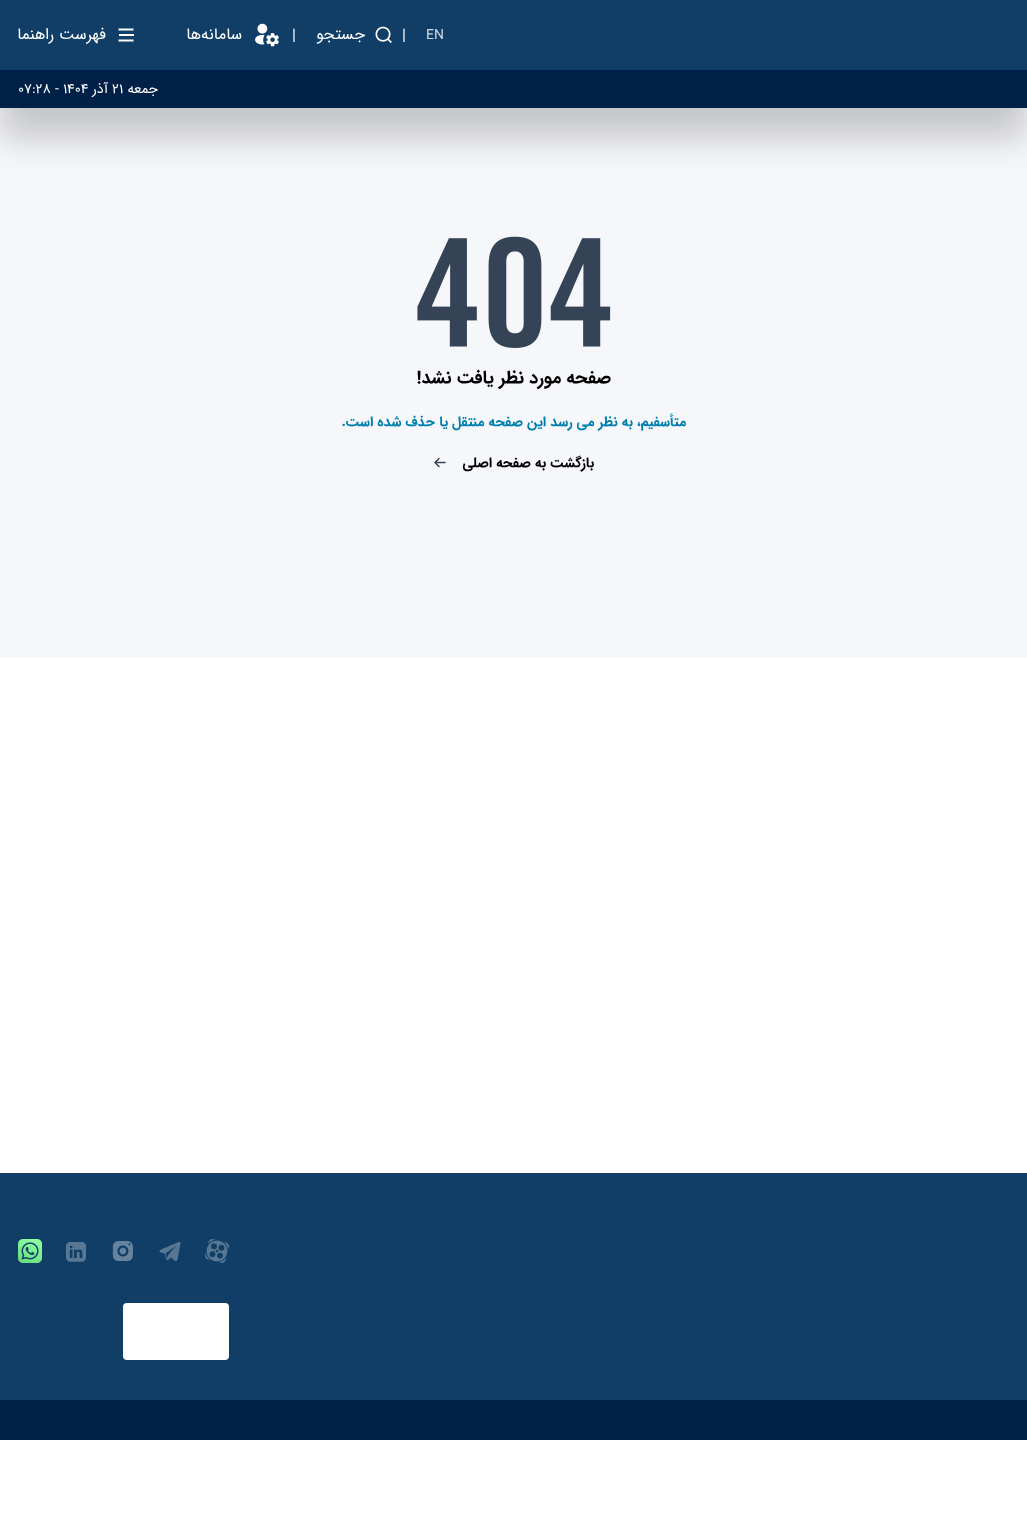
<!DOCTYPE html>
<meta charset="utf-8">
<style>body { margin: 0 } canvas { display: block }</style>
<canvas id="canvas" width="1027" height="1533"></canvas>
<img id="img1" src="img_01.png" hidden>
<img id="img2" src="img_02.png" hidden>
<img id="img3" src="img_03.png" hidden>
<img id="img4" src="img_04.png" hidden>
<img id="img5" src="img_05.png" hidden>
<img id="img6" src="img_06.png" hidden>
<img id="img7" src="img_07.png" hidden>
<img id="img8" src="img_08.png" hidden>
<script>
window.onload = function () {
	const canvas = document.getElementById("canvas");
	const ctx = canvas.getContext("2d");
	ctx.miterLimit = 4;
	ctx.fontKerning = "normal";
	function txt(s, x, y) {
		ctx.fillText(s, x, y);
	}
	function fill(x, y, w, h) {
		ctx.fillRect(x, y, w, h);
	}
	function round(x, y, w, h, r) {
		ctx.beginPath();
		ctx.roundRect(x, y, w, h, r);
		ctx.fill();
	}
	function img(id, x, y, w, h) {
		ctx.drawImage(document.getElementById(id), x, y, w, h);
	}

	ctx.fillStyle = "#FFFFFF";
	fill(0, 0, 1027, 1533);
	ctx.fillStyle = "#F6F7FB";
	fill(0, 108, 1027, 550);
	ctx.fillStyle = "rgba(0, 0, 0, 0.2)";
	ctx.filter = "blur(17.5px)";
	ctx.beginPath();
	ctx.rect(0, 30, 1027, 108);
	ctx.fill();
	ctx.filter = "none";
	ctx.fillStyle = "#113E66";
	fill(0, 0, 1027, 70);
	img("img1", 375, 26, 17, 17);
	img("img2", 255, 23, 24, 24);
	ctx.beginPath();
	ctx.moveTo(118.5, 29.5);
	ctx.lineTo(133.5, 29.5);
	ctx.strokeStyle = "#FFFFFF";
	ctx.lineWidth = 2;
	ctx.stroke();
	ctx.fillStyle = "#FFFFFF";
	fill(119, 34, 15, 2);
	ctx.beginPath();
	ctx.moveTo(118.5, 40.5);
	ctx.lineTo(133.5, 40.5);
	ctx.stroke();
	ctx.fillStyle = "#002147";
	fill(0, 70, 1027, 38);
	img("img3", 417, 236, 194, 112);
	ctx.beginPath();
	ctx.moveTo(445, 462.5);
	ctx.lineTo(435, 462.5);
	ctx.moveTo(435, 462.5);
	ctx.lineTo(439, 458.5);
	ctx.moveTo(435, 462.5);
	ctx.lineTo(439, 466.5);
	ctx.strokeStyle = "#344456";
	ctx.lineWidth = 1.5;
	ctx.lineCap = "round";
	ctx.lineJoin = "round";
	ctx.stroke();
	ctx.fillStyle = "#113E66";
	fill(0, 1173, 1027, 227);
	img("img4", 205, 1239, 24, 24);
	img("img5", 159, 1242, 22, 19);
	img("img6", 112, 1241, 21, 20);
	img("img7", 66, 1242, 20, 20);
	img("img8", 18, 1239, 24, 24);
	ctx.fillStyle = "#FFFFFF";
	round(123, 1303, 106, 57, 4);
	ctx.fillStyle = "#002147";
	fill(0, 1400, 1027, 40);
	ctx.font = "14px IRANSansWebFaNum";
	ctx.fillStyle = "#CFD8E0";
	txt("EN", 426, 39);
	ctx.font = "16px IRANSansWebFaNum";
	ctx.fillStyle = "#FFFFFF";
	txt("|", 402, 40);
	ctx.direction = "rtl";
	txt("جستجو", 365, 39);
	ctx.direction = "ltr";
	txt("|", 292, 40);
	ctx.direction = "rtl";
	txt("سامانه‌ها", 242, 39);
	txt("فهرست راهنما", 106, 39);
	ctx.font = "14px IRANSansWebFaNum";
	txt("جمعه", 158, 93);
	ctx.direction = "ltr";
	txt("۲۱", 112, 93);
	ctx.direction = "rtl";
	txt("آذر", 108, 93);
	ctx.direction = "ltr";
	txt("۰۷:۲۸ - ۱۴۰۴", 18, 93);
	ctx.direction = "rtl";
	ctx.font = "bold 18px IRANSansWebFaNum";
	ctx.fillStyle = "#000000";
	txt("صفحه مورد نظر یافت نشد!", 611, 383);
	ctx.font = "bold 14px IRANSansWebFaNum";
	ctx.fillStyle = "#007FAC";
	txt("متأسفیم، به نظر می رسد این صفحه منتقل یا حذف شده است.", 686, 426);
	ctx.fillStyle = "#000000";
	txt("بازگشت به صفحه اصلی", 594, 467);
};
</script>
